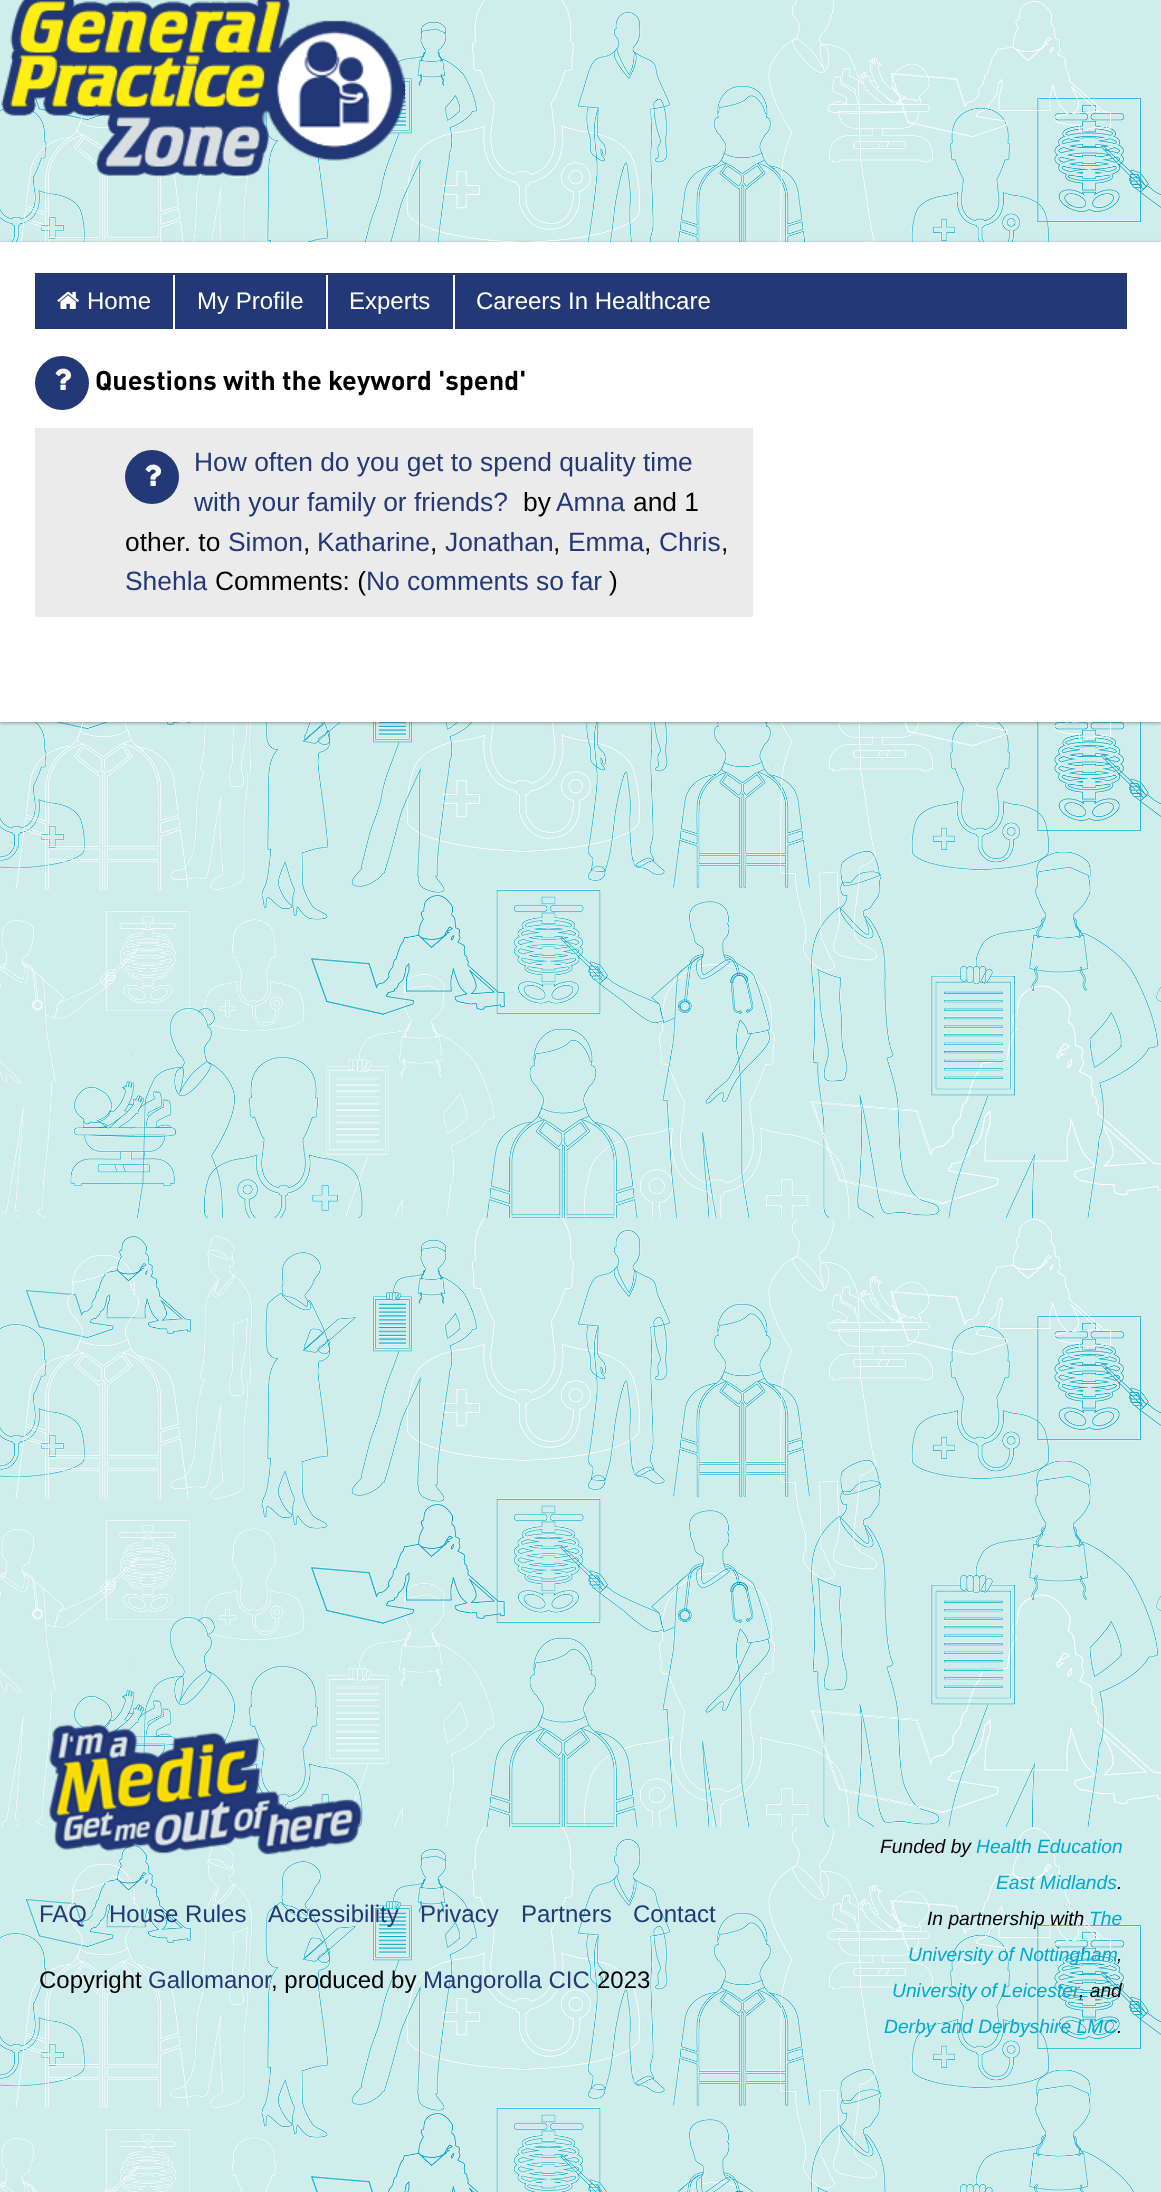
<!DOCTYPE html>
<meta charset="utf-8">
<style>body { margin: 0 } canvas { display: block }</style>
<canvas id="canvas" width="1161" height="2192"></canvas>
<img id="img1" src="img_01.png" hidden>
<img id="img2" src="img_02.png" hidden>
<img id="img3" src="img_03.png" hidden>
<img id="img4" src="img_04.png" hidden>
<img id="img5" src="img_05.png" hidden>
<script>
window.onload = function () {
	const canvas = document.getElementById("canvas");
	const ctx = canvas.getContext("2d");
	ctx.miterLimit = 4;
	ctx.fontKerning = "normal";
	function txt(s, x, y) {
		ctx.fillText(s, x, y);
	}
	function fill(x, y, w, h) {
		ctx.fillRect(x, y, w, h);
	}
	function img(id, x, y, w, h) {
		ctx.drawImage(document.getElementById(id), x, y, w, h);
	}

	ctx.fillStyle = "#FFFFFF";
	fill(0, 0, 1161, 2192);
	img("img1", 0, 0, 1161, 2192);
	img("img2", 1, 0, 404, 177);
	ctx.fillStyle = "rgba(0, 0, 0, 0.24)";
	ctx.filter = "blur(1.5px)";
	ctx.beginPath();
	ctx.rect(0, 243, 1161, 480);
	ctx.fill();
	ctx.filter = "none";
	ctx.fillStyle = "rgba(0, 0, 0, 0.12)";
	ctx.filter = "blur(2px)";
	ctx.beginPath();
	ctx.rect(0, 243, 1161, 480);
	ctx.fill();
	ctx.filter = "none";
	ctx.fillStyle = "#FFFFFF";
	fill(0, 242, 1161, 480);
	ctx.fillStyle = "#233876";
	fill(35, 273, 1092, 56);
	img("img3", 57, 291, 22, 18);
	ctx.fillStyle = "#FFFFFF";
	fill(173, 275, 2, 54);
	fill(326, 275, 2, 54);
	fill(453, 275, 2, 54);
	ctx.fillStyle = "#233876";
	ctx.beginPath();
	ctx.arc(62, 383, 27, 0, Math.PI * 2);
	ctx.fill();
	img("img4", 55, 368, 17, 22);
	ctx.fillStyle = "#EBEBEB";
	fill(35, 428, 718, 189);
	ctx.fillStyle = "#233876";
	ctx.beginPath();
	ctx.arc(152, 477, 27, 0, Math.PI * 2);
	ctx.fill();
	img("img4", 145, 464, 17, 22);
	img("img5", 49, 1724, 313, 131);
	ctx.font = "24px Liberation Sans";
	ctx.fillStyle = "#FFFFFF";
	txt("Home", 87, 309);
	txt("My Profile", 197, 309);
	txt("Experts", 349, 309);
	txt("Careers In Healthcare", 476, 309);
	ctx.font = "bold 27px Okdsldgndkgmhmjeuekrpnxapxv";
	ctx.fillStyle = "#000000";
	txt("Questions with the keyword 'spend'", 95, 390);
	ctx.font = "26.4px Liberation Sans";
	ctx.fillStyle = "#233876";
	txt("How often do you get to spend quality time", 194, 471);
	txt("with your family or friends?", 194, 511);
	ctx.fillStyle = "#000000";
	txt("by", 523, 511);
	ctx.fillStyle = "#233876";
	txt("Amna", 556, 511);
	ctx.fillStyle = "#000000";
	txt("and 1", 633, 511);
	txt("other. to", 125, 551);
	ctx.fillStyle = "#233876";
	txt("Simon", 228, 551);
	ctx.fillStyle = "#000000";
	txt(",", 303, 551);
	ctx.fillStyle = "#233876";
	txt("Katharine", 317, 551);
	ctx.fillStyle = "#000000";
	txt(",", 430, 551);
	ctx.fillStyle = "#233876";
	txt("Jonathan", 445, 551);
	ctx.fillStyle = "#000000";
	txt(",", 553, 551);
	ctx.fillStyle = "#233876";
	txt("Emma", 568, 551);
	ctx.fillStyle = "#000000";
	txt(",", 644, 551);
	ctx.fillStyle = "#233876";
	txt("Chris", 659, 551);
	ctx.fillStyle = "#000000";
	txt(",", 721, 551);
	ctx.fillStyle = "#233876";
	txt("Shehla", 125, 590);
	ctx.fillStyle = "#000000";
	txt("Comments: (", 215, 590);
	ctx.fillStyle = "#233876";
	txt("No comments so far", 366, 590);
	ctx.fillStyle = "#000000";
	txt(")", 609, 590);
	ctx.font = "24px Liberation Sans";
	ctx.fillStyle = "#233876";
	txt("FAQ", 39, 1922);
	txt("House Rules", 109, 1922);
	txt("Accessibility", 268, 1922);
	txt("Privacy", 420, 1922);
	txt("Partners", 521, 1922);
	txt("Contact", 633, 1922);
	ctx.fillStyle = "#000000";
	txt("Copyright", 39, 1988);
	ctx.fillStyle = "#233876";
	txt("Gallomanor", 148, 1988);
	ctx.fillStyle = "#000000";
	txt(", produced by", 271, 1988);
	ctx.fillStyle = "#233876";
	txt("Mangorolla CIC", 423, 1988);
	ctx.fillStyle = "#000000";
	txt("2023", 597, 1988);
	ctx.font = "italic 19.25px Liberation Sans";
	txt("Funded by", 880, 1853);
	ctx.fillStyle = "#00A9CF";
	txt("Health Education", 976, 1853);
	txt("East Midlands", 996, 1889);
	ctx.fillStyle = "#000000";
	txt(".", 1117, 1889);
	txt("In partnership with", 927, 1925);
	ctx.fillStyle = "#00A9CF";
	txt("The", 1089, 1925);
	txt("University of Nottingham", 908, 1961);
	ctx.fillStyle = "#000000";
	txt(",", 1117, 1961);
	ctx.wordSpacing = "-1px";
	ctx.fillStyle = "#00A9CF";
	txt("University of Leicester", 892, 1997);
	ctx.wordSpacing = "0px";
	ctx.fillStyle = "#000000";
	txt(", and", 1079, 1997);
	ctx.fillStyle = "#00A9CF";
	txt("Derby and Derbyshire LMC", 884, 2033);
	ctx.fillStyle = "#000000";
	txt(".", 1117, 2033);
};
</script>
